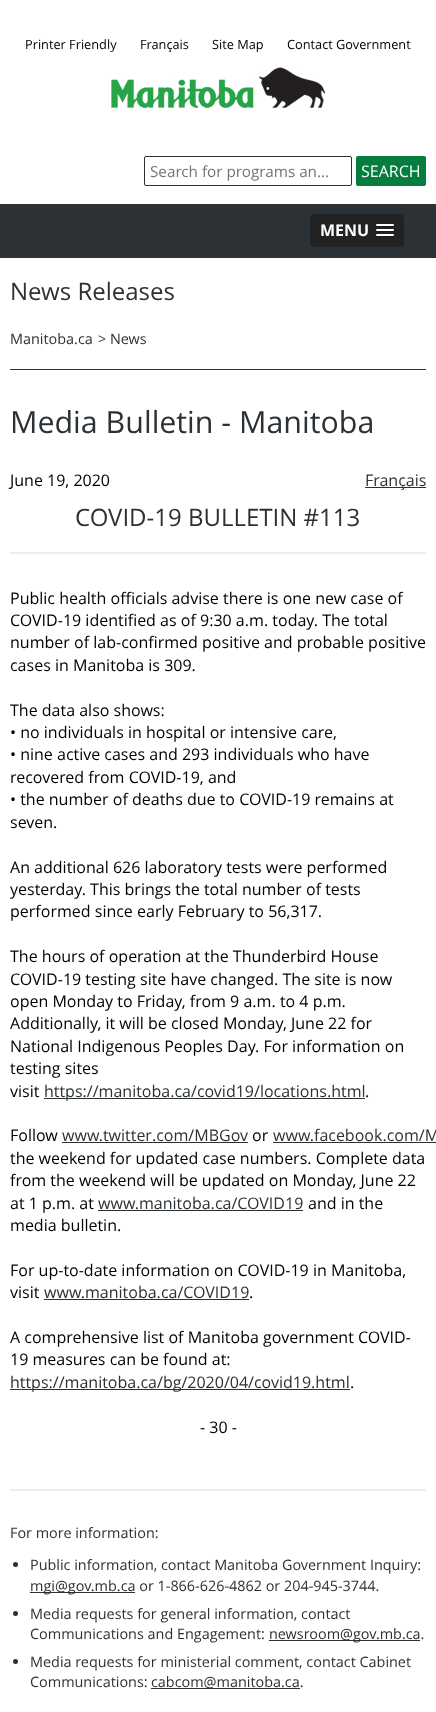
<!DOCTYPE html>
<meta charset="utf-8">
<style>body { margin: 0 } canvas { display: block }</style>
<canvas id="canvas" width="436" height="1712"></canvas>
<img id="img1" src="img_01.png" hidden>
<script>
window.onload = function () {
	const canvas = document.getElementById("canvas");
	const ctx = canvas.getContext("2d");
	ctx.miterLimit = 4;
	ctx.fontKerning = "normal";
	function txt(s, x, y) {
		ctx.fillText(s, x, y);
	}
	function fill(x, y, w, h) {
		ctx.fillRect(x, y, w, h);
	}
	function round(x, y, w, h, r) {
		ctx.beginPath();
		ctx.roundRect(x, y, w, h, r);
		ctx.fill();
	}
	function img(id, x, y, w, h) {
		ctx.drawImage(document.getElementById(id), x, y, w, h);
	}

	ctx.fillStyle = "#FFFFFF";
	fill(0, 0, 436, 1712);
	img("img1", 111, 67, 214, 41);
	ctx.beginPath();
	ctx.roundRect(144.5, 156.5, 207, 29, 1.5);
	ctx.strokeStyle = "#2C3135";
	ctx.stroke();
	ctx.fillStyle = "#057D3E";
	round(356, 156, 70, 30, 2);
	ctx.fillStyle = "#2C3135";
	fill(0, 204, 436, 54);
	ctx.fillStyle = "#222222";
	round(310, 214, 94, 33, 4);
	ctx.fillStyle = "#1A1A1A";
	ctx.beginPath();
	ctx.moveTo(376, 225.5);
	ctx.bezierCurveTo(375, 227.5, 379.5, 227, 379.5, 227);
	ctx.lineTo(390.5, 227);
	ctx.bezierCurveTo(390.5, 227, 395, 227.5, 394, 225.5);
	ctx.bezierCurveTo(393, 226.5, 386.5, 226, 385, 226);
	ctx.bezierCurveTo(383.5, 226, 377, 226.5, 376, 225.5);
	ctx.closePath();
	ctx.fill();
	ctx.fillStyle = "#FFFFFF";
	round(376, 224, 18, 2, 1);
	ctx.fillStyle = "#1A1A1A";
	ctx.beginPath();
	ctx.moveTo(376, 230.5);
	ctx.bezierCurveTo(375, 232.5, 379.5, 232, 379.5, 232);
	ctx.lineTo(390.5, 232);
	ctx.bezierCurveTo(390.5, 232, 395, 232.5, 394, 230.5);
	ctx.bezierCurveTo(393, 231.5, 386.5, 231, 385, 231);
	ctx.bezierCurveTo(383.5, 231, 377, 231.5, 376, 230.5);
	ctx.closePath();
	ctx.fill();
	ctx.fillStyle = "#FFFFFF";
	round(376, 229, 18, 2, 1);
	ctx.fillStyle = "#1A1A1A";
	ctx.beginPath();
	ctx.moveTo(376, 235.5);
	ctx.bezierCurveTo(375, 237.5, 379.5, 237, 379.5, 237);
	ctx.lineTo(390.5, 237);
	ctx.bezierCurveTo(390.5, 237, 395, 237.5, 394, 235.5);
	ctx.bezierCurveTo(393, 236.5, 386.5, 236, 385, 236);
	ctx.bezierCurveTo(383.5, 236, 377, 236.5, 376, 235.5);
	ctx.closePath();
	ctx.fill();
	ctx.fillStyle = "#FFFFFF";
	round(376, 234, 18, 2, 1);
	ctx.fillStyle = "#2C3135";
	fill(10, 369, 416, 1);
	fill(365, 487, 61, 1);
	ctx.fillStyle = "#EEEEEE";
	fill(10, 552, 416, 2);
	ctx.fillStyle = "#2C3135";
	fill(44, 1098, 321, 1);
	fill(62, 1142, 186, 1);
	fill(273, 1142, 163, 1);
	fill(98, 1210, 205, 1);
	fill(44, 1299, 205, 1);
	fill(10, 1389, 340, 1);
	ctx.fillStyle = "#EEEEEE";
	fill(10, 1489, 416, 2);
	ctx.fillStyle = "#2C3135";
	ctx.beginPath();
	ctx.arc(15.5, 1564.5, 2.5, 0, Math.PI * 2);
	ctx.fill();
	fill(30, 1592, 105, 1);
	ctx.beginPath();
	ctx.arc(15.5, 1613.5, 2.5, 0, Math.PI * 2);
	ctx.fill();
	fill(269, 1640, 151, 1);
	ctx.beginPath();
	ctx.arc(15.5, 1661.5, 2.5, 0, Math.PI * 2);
	ctx.fill();
	fill(151, 1688, 149, 1);
	ctx.font = "12.75px Open Sans";
	ctx.fillStyle = "#000000";
	txt("Printer Friendly", 25, 49);
	txt("Français", 140, 49);
	txt("Site Map", 212, 49);
	txt("Contact Government", 287, 49);
	ctx.font = "15.25px Open Sans";
	ctx.fillStyle = "#757575";
	txt("Search for programs an…", 150, 177);
	ctx.font = "16px Open Sans";
	ctx.fillStyle = "#FFFFFF";
	txt("SEARCH", 361, 177);
	ctx.font = "bold 16px Open Sans";
	txt("MENU", 320, 236);
	ctx.font = "24px Open Sans";
	ctx.fillStyle = "#2C3135";
	txt("News Releases", 10, 300);
	ctx.font = "14.4px Open Sans";
	txt("Manitoba.ca", 10, 344);
	txt("> News", 98, 344);
	ctx.font = "30.4px Open Sans";
	txt("Media Bulletin - Manitoba", 10, 433);
	ctx.font = "16px Open Sans";
	ctx.fillStyle = "#000000";
	txt("June 19, 2020", 10, 486);
	ctx.fillStyle = "#2C3135";
	txt("Français", 365, 486);
	ctx.font = "24px Open Sans";
	txt("COVID-19 BULLETIN #113", 75, 526);
	ctx.font = "16px Open Sans";
	ctx.fillStyle = "#000000";
	txt("Public health officials advise there is one new case of", 10, 604);
	txt("COVID-19 identified as of 9:30 a.m. today. The total", 10, 626);
	txt("number of lab-confirmed positive and probable positive", 10, 648);
	txt("cases in Manitoba is 309.", 10, 671);
	txt("The data also shows:", 10, 716);
	txt("• no individuals in hospital or intensive care,", 10, 738);
	txt("• nine active cases and 293 individuals who have", 10, 760);
	txt("recovered from COVID-19, and", 10, 783);
	txt("• the number of deaths due to COVID-19 remains at", 10, 805);
	txt("seven.", 10, 828);
	txt("An additional 626 laboratory tests were performed", 10, 873);
	txt("yesterday. This brings the total number of tests", 10, 895);
	txt("performed since early February to 56,317.", 10, 917);
	txt("The hours of operation at the Thunderbird House", 10, 962);
	txt("COVID-19 testing site have changed. The site is now", 10, 985);
	txt("open Monday to Friday, from 9 a.m. to 4 p.m.", 10, 1007);
	txt("Additionally, it will be closed Monday, June 22 for", 10, 1029);
	txt("National Indigenous Peoples Day. For information on", 10, 1052);
	txt("testing sites", 10, 1074);
	txt("visit", 10, 1097);
	ctx.fillStyle = "#2C3135";
	txt("https://manitoba.ca/covid19/locations.html", 44, 1097);
	ctx.fillStyle = "#000000";
	txt(".", 365, 1097);
	txt("Follow", 10, 1141);
	ctx.fillStyle = "#2C3135";
	txt("www.twitter.com/MBGov", 62, 1141);
	ctx.fillStyle = "#000000";
	txt("or", 252, 1141);
	ctx.fillStyle = "#2C3135";
	txt("www.facebook.com/M", 273, 1141);
	ctx.fillStyle = "#000000";
	txt("the weekend for updated case numbers. Complete data", 10, 1164);
	txt("from the weekend will be updated on Monday, June 22", 10, 1186);
	txt("at 1 p.m. at", 10, 1209);
	ctx.fillStyle = "#2C3135";
	txt("www.manitoba.ca/COVID19", 98, 1209);
	ctx.fillStyle = "#000000";
	txt("and in the", 308, 1209);
	txt("media bulletin.", 10, 1231);
	txt("For up-to-date information on COVID-19 in Manitoba,", 10, 1276);
	txt("visit", 10, 1298);
	ctx.fillStyle = "#2C3135";
	txt("www.manitoba.ca/COVID19", 44, 1298);
	ctx.fillStyle = "#000000";
	txt(".", 249, 1298);
	txt("A comprehensive list of Manitoba government COVID-", 10, 1343);
	txt("19 measures can be found at:", 10, 1365);
	ctx.fillStyle = "#2C3135";
	txt("https://manitoba.ca/bg/2020/04/covid19.html", 10, 1388);
	ctx.fillStyle = "#000000";
	txt(".", 350, 1388);
	txt("- 30 -", 200, 1433);
	ctx.font = "14.4px Open Sans";
	ctx.fillStyle = "#2C3135";
	txt("For more information:", 10, 1538);
	txt("Public information, contact Manitoba Government Inquiry:", 30, 1570);
	txt("mgi@gov.mb.ca or 1-866-626-4862 or 204-945-3744.", 30, 1591);
	txt("Media requests for general information, contact", 30, 1619);
	txt("Communications and Engagement:", 30, 1639);
	txt("newsroom@gov.mb.ca.", 269, 1639);
	txt("Media requests for ministerial comment, contact Cabinet", 30, 1667);
	txt("Communications:", 30, 1687);
	txt("cabcom@manitoba.ca.", 151, 1687);
};
</script>
